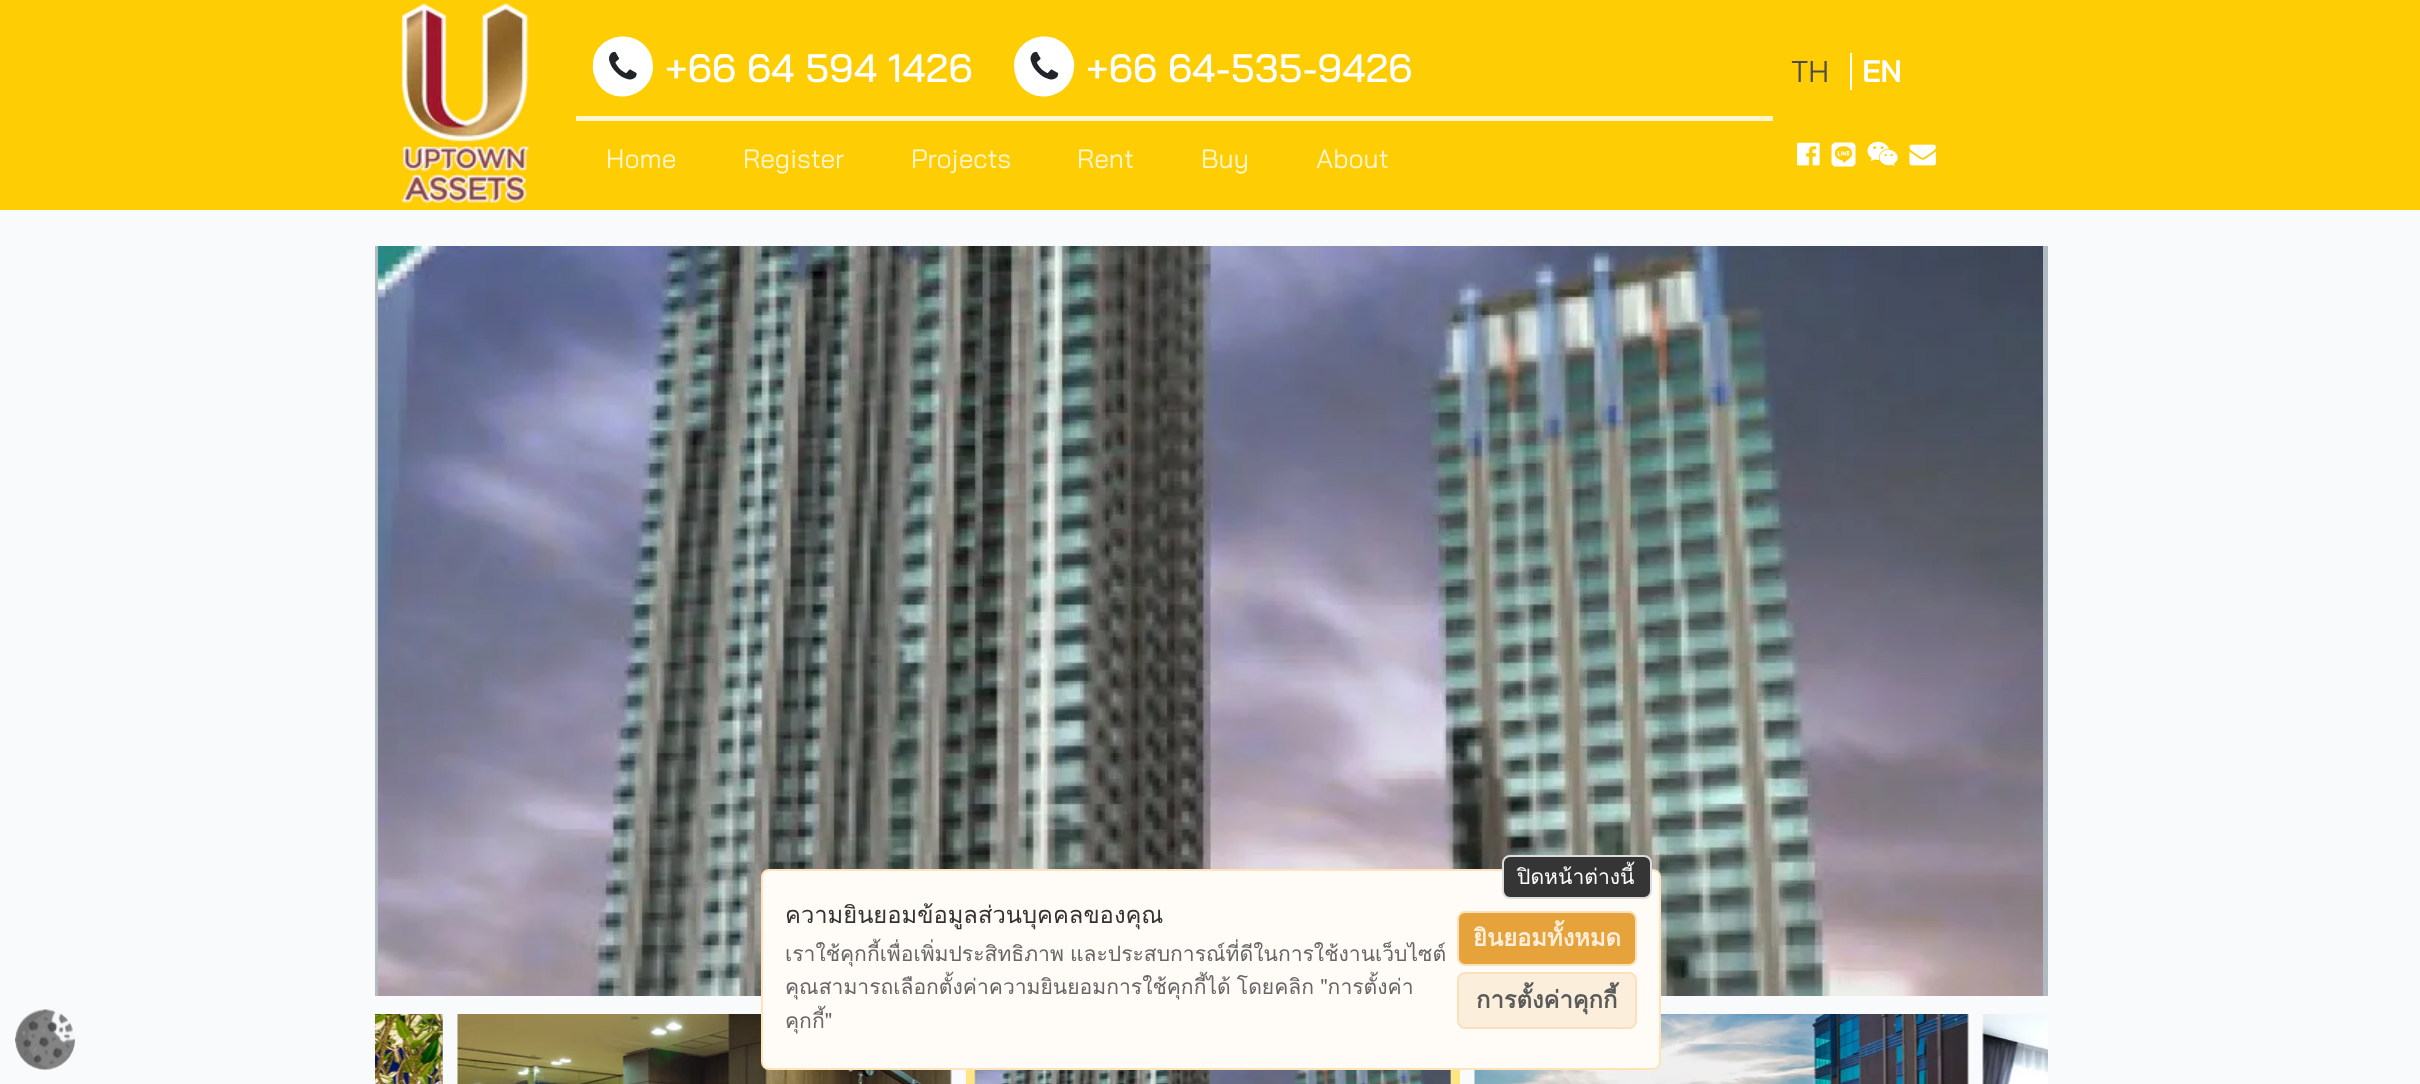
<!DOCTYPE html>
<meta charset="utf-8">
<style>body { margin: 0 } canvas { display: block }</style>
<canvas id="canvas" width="2420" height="1084"></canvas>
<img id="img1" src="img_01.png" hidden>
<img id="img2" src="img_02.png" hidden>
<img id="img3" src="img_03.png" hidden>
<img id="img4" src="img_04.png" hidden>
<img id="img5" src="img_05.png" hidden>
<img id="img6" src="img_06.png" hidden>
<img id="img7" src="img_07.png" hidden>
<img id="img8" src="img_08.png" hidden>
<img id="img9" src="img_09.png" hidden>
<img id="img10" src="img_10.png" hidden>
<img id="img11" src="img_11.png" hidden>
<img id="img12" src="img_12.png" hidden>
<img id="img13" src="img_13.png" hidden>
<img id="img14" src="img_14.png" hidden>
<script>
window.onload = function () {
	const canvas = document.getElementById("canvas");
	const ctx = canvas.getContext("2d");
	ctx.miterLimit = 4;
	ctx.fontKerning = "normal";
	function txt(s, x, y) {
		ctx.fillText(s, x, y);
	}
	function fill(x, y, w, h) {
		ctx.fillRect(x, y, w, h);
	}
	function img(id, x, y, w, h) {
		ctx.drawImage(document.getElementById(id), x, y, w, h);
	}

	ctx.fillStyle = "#F8FAFC";
	fill(0, 0, 2420, 1084);
	ctx.fillStyle = "#FFCD03";
	fill(0, 0, 2420, 210);
	img("img1", 401, 2, 129, 201);
	ctx.fillStyle = "#FFF6D1";
	fill(576, 116, 1197, 5);
	ctx.fillStyle = "#FFFFFF";
	ctx.beginPath();
	ctx.moveTo(649, 51);
	ctx.bezierCurveTo(652, 56, 653, 62, 653, 68);
	ctx.bezierCurveTo(651, 98, 611, 107, 597, 82);
	ctx.bezierCurveTo(594, 76, 592, 70, 593, 64);
	ctx.bezierCurveTo(594, 35, 634, 26, 649, 51);
	ctx.closePath();
	ctx.fill();
	img("img2", 609, 51, 28, 29);
	ctx.beginPath();
	ctx.moveTo(1070, 51);
	ctx.bezierCurveTo(1073, 56, 1075, 62, 1074, 68);
	ctx.bezierCurveTo(1072, 98, 1033, 107, 1018, 82);
	ctx.bezierCurveTo(1015, 76, 1014, 70, 1014, 64);
	ctx.bezierCurveTo(1016, 35, 1055, 26, 1070, 51);
	ctx.closePath();
	ctx.fill();
	img("img3", 1030, 51, 29, 29);
	fill(1850, 53, 2, 37);
	img("img4", 1797, 142, 23, 24);
	img("img5", 1831, 142, 25, 25);
	img("img6", 1867, 141, 31, 26);
	img("img7", 1909, 144, 27, 22);
	ctx.fillStyle = "#B2BAC1";
	fill(375, 246, 1673, 750);
	img("img8", 378, 246, 1665, 750);
	fill(442, 1014, 1, 70);
	img("img9", 375, 1014, 68, 70);
	img("img10", 457, 1014, 495, 70);
	fill(975, 1070, 476, 14);
	ctx.strokeStyle = "#FFE683";
	ctx.lineWidth = 9;
	ctx.strokeRect(970.5, 1018.5, 485, 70);
	img("img11", 974, 1070, 477, 14);
	img("img12", 1474, 1014, 495, 70);
	img("img13", 1982, 1014, 66, 70);
	ctx.fillStyle = "#F5F7F8";
	ctx.beginPath();
	ctx.arc(45, 1040, 30, 0, Math.PI * 2);
	ctx.fill();
	img("img14", 15, 1009, 60, 61);
	ctx.fillStyle = "#FFFBF6";
	ctx.beginPath();
	ctx.roundRect(762, 870, 898, 199, 7);
	ctx.fill();
	ctx.strokeStyle = "#FFE4B9";
	ctx.lineWidth = 2;
	ctx.stroke();
	ctx.fillStyle = "#353535";
	ctx.beginPath();
	ctx.roundRect(1503, 856, 148, 42, 7);
	ctx.fill();
	ctx.strokeStyle = "#DDDDDD";
	ctx.stroke();
	ctx.fillStyle = "#E7A33B";
	ctx.beginPath();
	ctx.roundRect(1458, 912, 178, 53, 7);
	ctx.fill();
	ctx.strokeStyle = "#FAE1BB";
	ctx.stroke();
	ctx.fillStyle = "#FBEFDC";
	ctx.beginPath();
	ctx.roundRect(1458, 973, 178, 55, 7);
	ctx.fill();
	ctx.stroke();
	ctx.font = "500 39.5px Bai Jamjuree";
	ctx.fillStyle = "#FFFFFF";
	txt("+66 64 594 1426", 665, 82);
	txt("+66 64-535-9426", 1086, 82);
	ctx.font = "26.5px Bai Jamjuree";
	ctx.fillStyle = "#FFF6D1";
	txt("Home", 606, 168);
	txt("Register", 743, 168);
	txt("Projects", 911, 168);
	txt("Rent", 1077, 168);
	txt("Buy", 1201, 168);
	txt("About", 1316, 168);
	ctx.font = "30px Bai Jamjuree";
	ctx.fillStyle = "#4D4C4C";
	txt("TH", 1791, 82);
	ctx.font = "bold 30px Bai Jamjuree";
	ctx.fillStyle = "#FFFFFF";
	txt("EN", 1862, 82);
	ctx.font = "21.1px Loma";
	txt("ปิดหน้าต่างนี้", 1517, 884);
	ctx.font = "23.75px Loma";
	ctx.fillStyle = "#333333";
	txt("ความยินยอมข้อมูลส่วนบุคคลของคุณ", 785, 923);
	ctx.wordSpacing = "-1px";
	ctx.font = "21.1px Loma";
	ctx.fillStyle = "#666666";
	txt("เราใช้คุกกี้เพื่อเพิ่มประสิทธิภาพ และประสบการณ์ที่ดีในการใช้งานเว็บไซต์", 785, 961);
	txt("คุณสามารถเลือกตั้งค่าความยินยอมการใช้คุกกี้ได้ โดยคลิก \"การตั้งค่า", 785, 994);
	ctx.wordSpacing = "0px";
	txt("คุกกี้\"", 785, 1028);
	ctx.font = "bold 23.75px Loma";
	ctx.fillStyle = "#FBEFDC";
	txt("ยินยอมทั้งหมด", 1473, 946);
	ctx.fillStyle = "#5A5A5A";
	txt("การตั้งค่าคุกกี้", 1476, 1008);
};
</script>
